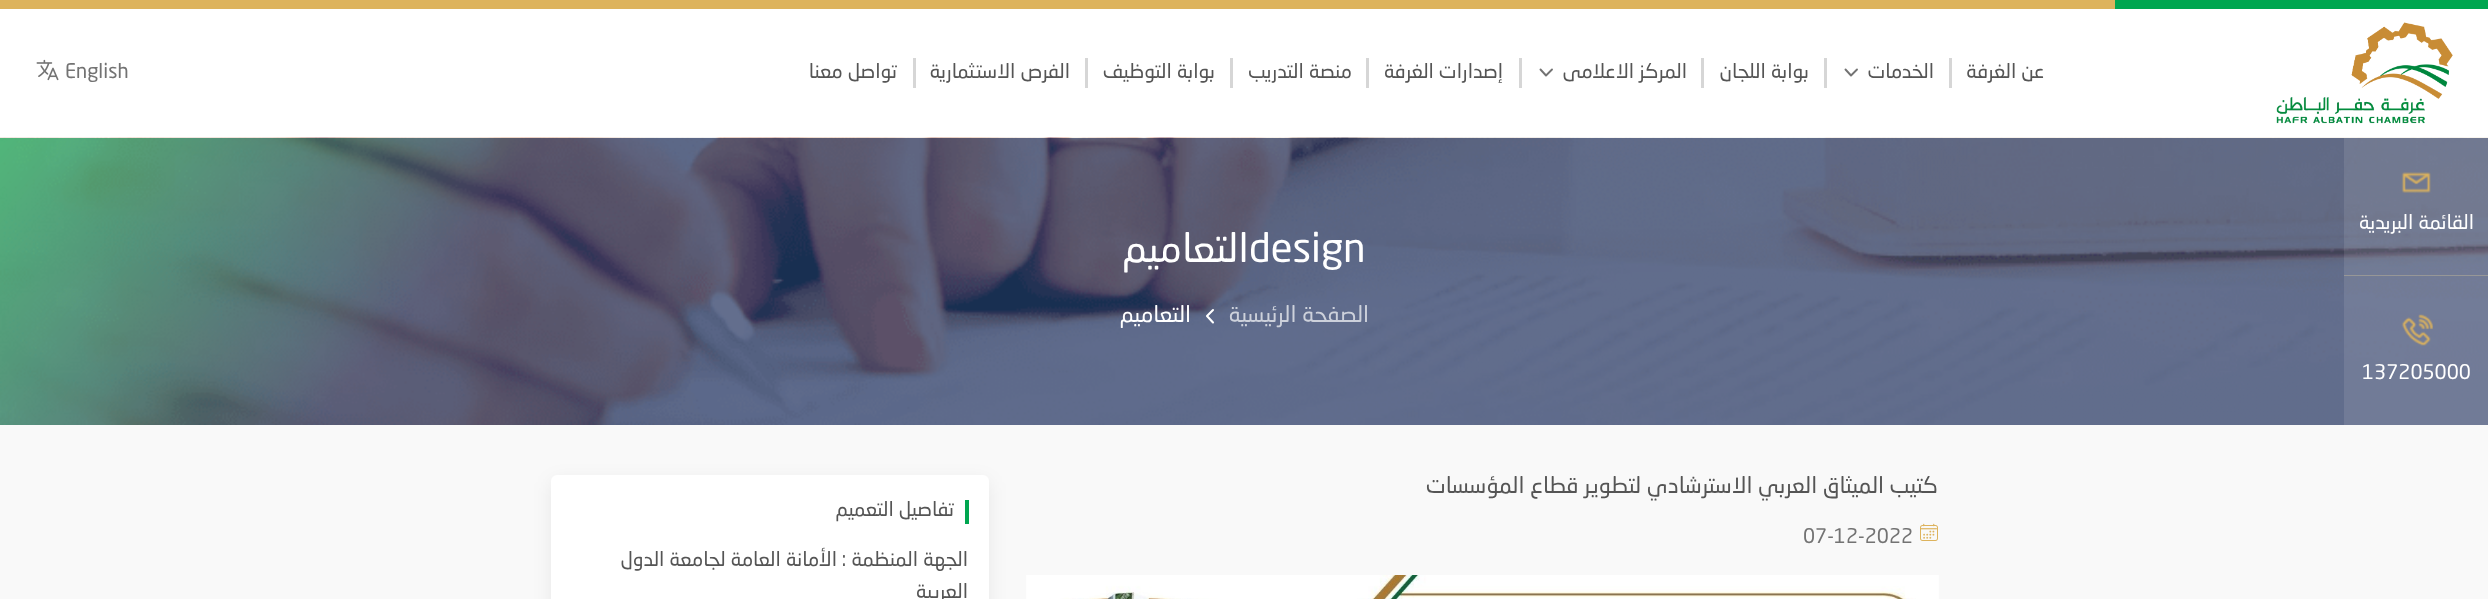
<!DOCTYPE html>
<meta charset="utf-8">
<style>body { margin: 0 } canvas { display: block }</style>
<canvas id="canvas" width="2488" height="599"></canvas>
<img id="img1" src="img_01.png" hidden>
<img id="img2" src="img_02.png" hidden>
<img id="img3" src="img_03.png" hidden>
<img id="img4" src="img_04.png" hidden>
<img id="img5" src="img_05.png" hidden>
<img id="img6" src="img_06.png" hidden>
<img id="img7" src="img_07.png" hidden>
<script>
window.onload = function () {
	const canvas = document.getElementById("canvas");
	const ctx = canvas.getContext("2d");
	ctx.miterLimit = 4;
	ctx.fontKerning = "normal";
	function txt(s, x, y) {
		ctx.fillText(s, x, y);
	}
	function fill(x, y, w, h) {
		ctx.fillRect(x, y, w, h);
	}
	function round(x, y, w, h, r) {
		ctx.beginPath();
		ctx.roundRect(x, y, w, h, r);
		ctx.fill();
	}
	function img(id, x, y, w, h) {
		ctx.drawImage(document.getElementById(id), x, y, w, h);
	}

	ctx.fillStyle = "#FFFFFF";
	fill(0, 0, 2488, 599);
	ctx.fillStyle = "#DDB35D";
	fill(0, 0, 2115, 9);
	ctx.fillStyle = "#00A650";
	fill(2115, 0, 373, 9);
	img("img1", 2276, 22, 177, 102);
	ctx.fillStyle = "#D6D6D6";
	fill(1949, 58, 3, 30);
	fill(1824, 58, 3, 30);
	ctx.beginPath();
	ctx.moveTo(1845.5, 69.5);
	ctx.lineTo(1851, 75.5);
	ctx.lineTo(1857, 69.5);
	ctx.strokeStyle = "#737373";
	ctx.lineWidth = 1.9;
	ctx.lineCap = "round";
	ctx.lineJoin = "round";
	ctx.stroke();
	fill(1701, 58, 3, 30);
	fill(1519, 58, 3, 30);
	ctx.beginPath();
	ctx.moveTo(1540.5, 69.5);
	ctx.lineTo(1546, 75.5);
	ctx.lineTo(1552, 69.5);
	ctx.stroke();
	fill(1366, 58, 3, 30);
	fill(1230, 58, 3, 30);
	fill(1085, 58, 3, 30);
	fill(913, 58, 3, 30);
	img("img2", 36, 59, 23, 22);
	img("img3", 0, 137, 2488, 288);
	ctx.fillStyle = "rgba(255, 255, 255, 0.1)";
	fill(2344, 138, 144, 287);
	ctx.fillStyle = "#979797";
	fill(2344, 275, 144, 1);
	img("img4", 2401, 172, 30, 21);
	img("img5", 2401, 314, 32, 32);
	ctx.beginPath();
	ctx.moveTo(1213, 310);
	ctx.lineTo(1207, 316);
	ctx.lineTo(1213, 322.5);
	ctx.strokeStyle = "#FFFFFF";
	ctx.lineWidth = 2.1;
	ctx.stroke();
	ctx.fillStyle = "#F9F9F9";
	fill(0, 425, 2488, 174);
	img("img6", 1920, 523, 18, 18);
	img("img7", 1026, 575, 913, 24);
	ctx.fillStyle = "rgba(0, 0, 0, 0.07)";
	ctx.filter = "blur(9.5px)";
	ctx.beginPath();
	ctx.roundRect(551, 481, 438, 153, 6);
	ctx.fill();
	ctx.filter = "none";
	ctx.fillStyle = "#FFFFFF";
	round(551, 475, 438, 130, 6);
	ctx.fillStyle = "#00A650";
	fill(965, 500, 4, 24);
	ctx.direction = "rtl";
	ctx.font = "20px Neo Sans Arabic";
	ctx.fillStyle = "#555555";
	txt("عن الغرفة", 2044, 78);
	txt("الخدمات", 1934, 78);
	txt("بوابة اللجان", 1809, 78);
	txt("المركز الاعلامى", 1687, 78);
	txt("إصدارات الغرفة", 1503, 78);
	txt("منصة التدريب", 1352, 78);
	txt("بوابة التوظيف", 1215, 78);
	txt("الفرص الاستثمارية", 1070, 78);
	txt("تواصل معنا", 897, 78);
	ctx.direction = "ltr";
	ctx.fillStyle = "#737373";
	txt("English", 65, 78);
	ctx.direction = "rtl";
	ctx.fillStyle = "#FFFFFF";
	txt("القائمة البريدية", 2474, 229);
	ctx.direction = "ltr";
	txt("137205000", 2362, 379);
	ctx.font = "40px Neo Sans Arabic";
	txt("design", 1249, 262);
	ctx.direction = "rtl";
	txt("التعاميم", 1249, 262);
	ctx.font = "22.5px Neo Sans Arabic";
	ctx.fillStyle = "#CDD1DB";
	txt("الصفحة الرئيسية", 1369, 322);
	ctx.fillStyle = "#FFFFFF";
	txt("التعاميم", 1191, 322);
	ctx.fillStyle = "#555555";
	txt("كتيب الميثاق العربي الاسترشادي لتطوير قطاع المؤسسات", 1938, 493);
	ctx.direction = "ltr";
	ctx.font = "20px Neo Sans Arabic";
	ctx.fillStyle = "#737373";
	txt("07-12-2022", 1803, 543);
	ctx.direction = "rtl";
	ctx.fillStyle = "#555555";
	txt("تفاصيل التعميم", 954, 516);
	txt("الجهة المنظمة :", 968, 566);
	txt("الأمانة العامة لجامعة الدول", 837, 566);
	txt("العربية", 968, 598);
};
</script>
